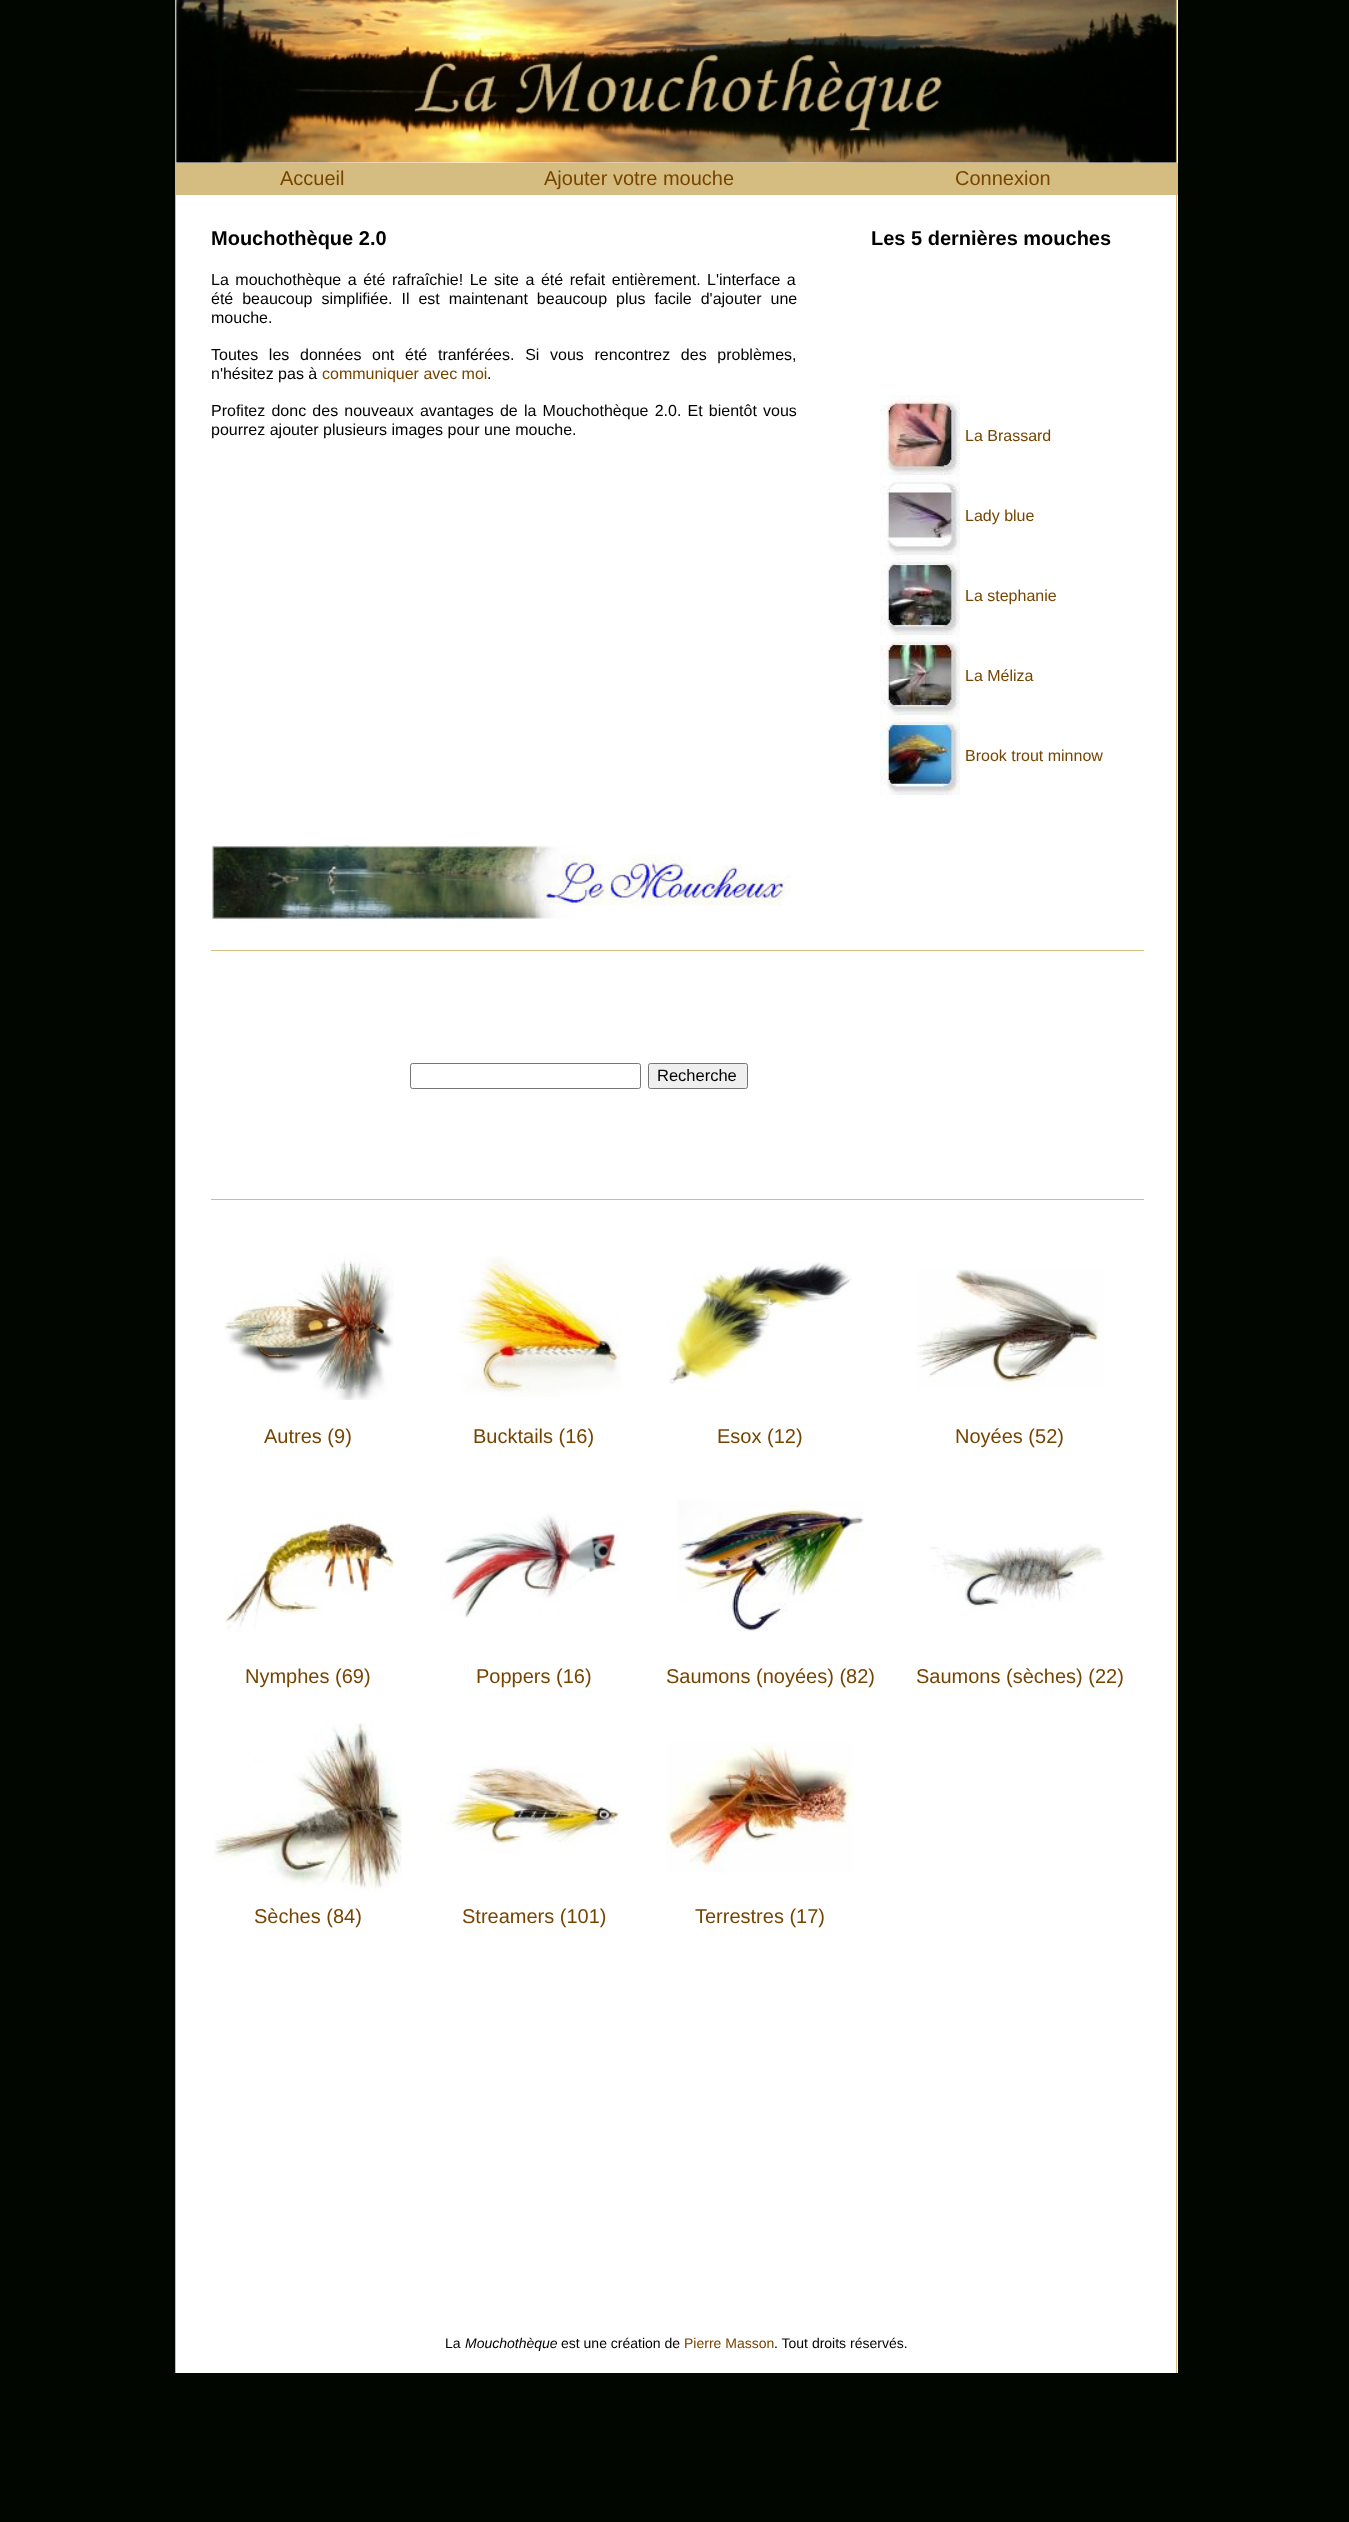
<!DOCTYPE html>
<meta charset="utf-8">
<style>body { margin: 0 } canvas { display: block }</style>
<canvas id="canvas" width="1349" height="2522"></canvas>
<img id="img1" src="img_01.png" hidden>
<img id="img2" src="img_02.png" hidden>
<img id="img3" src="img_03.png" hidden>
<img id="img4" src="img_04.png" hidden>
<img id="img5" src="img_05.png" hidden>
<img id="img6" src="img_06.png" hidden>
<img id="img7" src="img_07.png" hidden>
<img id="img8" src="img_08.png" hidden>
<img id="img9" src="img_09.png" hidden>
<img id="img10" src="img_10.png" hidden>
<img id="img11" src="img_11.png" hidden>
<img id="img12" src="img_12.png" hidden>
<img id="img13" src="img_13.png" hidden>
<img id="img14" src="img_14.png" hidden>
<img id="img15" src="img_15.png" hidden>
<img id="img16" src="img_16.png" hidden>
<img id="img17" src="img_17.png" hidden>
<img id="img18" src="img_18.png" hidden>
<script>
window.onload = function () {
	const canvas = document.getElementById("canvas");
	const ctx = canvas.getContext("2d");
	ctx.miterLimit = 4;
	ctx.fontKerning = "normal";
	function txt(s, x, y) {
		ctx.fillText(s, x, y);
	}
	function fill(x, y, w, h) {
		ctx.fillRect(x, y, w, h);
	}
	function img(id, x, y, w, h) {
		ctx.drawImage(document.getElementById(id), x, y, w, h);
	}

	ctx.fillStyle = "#010600";
	fill(0, 0, 1349, 2522);
	ctx.fillStyle = "#FFFFFF";
	fill(176, 0, 1002, 2373);
	ctx.fillStyle = "#D5BD81";
	fill(175, 0, 1, 163);
	fill(1176, 0, 1, 163);
	img("img1", 176, 0, 1001, 163);
	fill(175, 163, 1003, 32);
	fill(1176, 195, 1, 2178);
	fill(175, 195, 1, 2178);
	img("img2", 211, 845, 580, 75);
	img("img3", 880, 395, 80, 80);
	img("img4", 880, 475, 80, 80);
	img("img5", 880, 555, 80, 80);
	img("img6", 880, 635, 80, 80);
	img("img7", 880, 715, 80, 80);
	fill(211, 950, 933, 1);
	ctx.beginPath();
	ctx.roundRect(410.5, 1063.5, 230, 25, 2);
	ctx.strokeStyle = "#767676";
	ctx.stroke();
	ctx.fillStyle = "#EFEFEF";
	ctx.beginPath();
	ctx.roundRect(648.5, 1063.5, 99, 25, 2);
	ctx.fill();
	ctx.stroke();
	ctx.fillStyle = "#D5BD81";
	fill(211, 1199, 933, 1);
	img("img8", 224, 1253, 170, 147);
	img("img9", 459, 1256, 162, 141);
	img("img10", 667, 1262, 185, 122);
	img("img11", 916, 1269, 188, 123);
	img("img12", 223, 1513, 172, 119);
	img("img13", 440, 1513, 180, 105);
	img("img14", 677, 1499, 187, 133);
	img("img15", 929, 1543, 176, 67);
	img("img16", 214, 1722, 188, 170);
	img("img17", 440, 1765, 181, 88);
	img("img18", 666, 1741, 188, 132);
	ctx.font = "20px Liberation Sans";
	ctx.fillStyle = "#774400";
	txt("Accueil", 280, 185);
	txt("Ajouter votre mouche", 544, 185);
	txt("Connexion", 955, 185);
	ctx.font = "bold 20px Liberation Sans";
	ctx.fillStyle = "#000000";
	txt("Mouchothèque 2.0", 211, 245);
	txt("Les 5 dernières mouches", 871, 245);
	ctx.wordSpacing = "2.1px";
	ctx.font = "16px Liberation Sans";
	txt("La mouchothèque a été rafraîchie! Le site a été refait entièrement.", 211, 285);
	txt("L'interface a", 707, 285);
	ctx.wordSpacing = "4.5px";
	txt("été beaucoup simplifiée. Il est maintenant beaucoup plus facile d'ajouter une", 211, 304);
	ctx.wordSpacing = "0px";
	txt("mouche.", 211, 323);
	ctx.wordSpacing = "6.25px";
	txt("Toutes les données ont été tranférées. Si vous rencontrez des problèmes,", 211, 360);
	ctx.wordSpacing = "0px";
	txt("n'hésitez pas à", 211, 379);
	ctx.fillStyle = "#774400";
	txt("communiquer avec moi", 322, 379);
	ctx.fillStyle = "#000000";
	txt(".", 487, 379);
	ctx.wordSpacing = "1.75px";
	txt("Profitez donc des nouveaux avantages de la Mouchothèque 2.0. Et bientôt vous", 211, 416);
	ctx.wordSpacing = "0px";
	txt("pourrez ajouter plusieurs images pour une mouche.", 211, 435);
	ctx.fillStyle = "#774400";
	txt("La Brassard", 965, 441);
	txt("Lady blue", 965, 521);
	txt("La stephanie", 965, 601);
	txt("La Méliza", 965, 681);
	txt("Brook trout minnow", 965, 761);
	ctx.font = "16.5px Liberation Sans";
	ctx.fillStyle = "#000000";
	txt("Recherche", 657, 1081);
	ctx.font = "20px Liberation Sans";
	ctx.fillStyle = "#774400";
	txt("Autres (9)", 264, 1443);
	txt("Bucktails (16)", 473, 1443);
	txt("Esox (12)", 717, 1443);
	txt("Noyées (52)", 955, 1443);
	txt("Nymphes (69)", 245, 1683);
	txt("Poppers (16)", 476, 1683);
	txt("Saumons (noyées) (82)", 666, 1683);
	txt("Saumons (sèches) (22)", 916, 1683);
	txt("Sèches (84)", 254, 1923);
	txt("Streamers (101)", 462, 1923);
	txt("Terrestres (17)", 695, 1923);
	ctx.font = "14px Liberation Sans";
	ctx.fillStyle = "#000000";
	txt("La", 445, 2348);
	ctx.font = "italic 14px Liberation Sans";
	txt("Mouchothèque", 465, 2348);
	ctx.font = "14px Liberation Sans";
	txt("est une création de", 561, 2348);
	ctx.fillStyle = "#774400";
	txt("Pierre Masson", 684, 2348);
	ctx.fillStyle = "#000000";
	txt(". Tout droits réservés.", 774, 2348);
};
</script>
